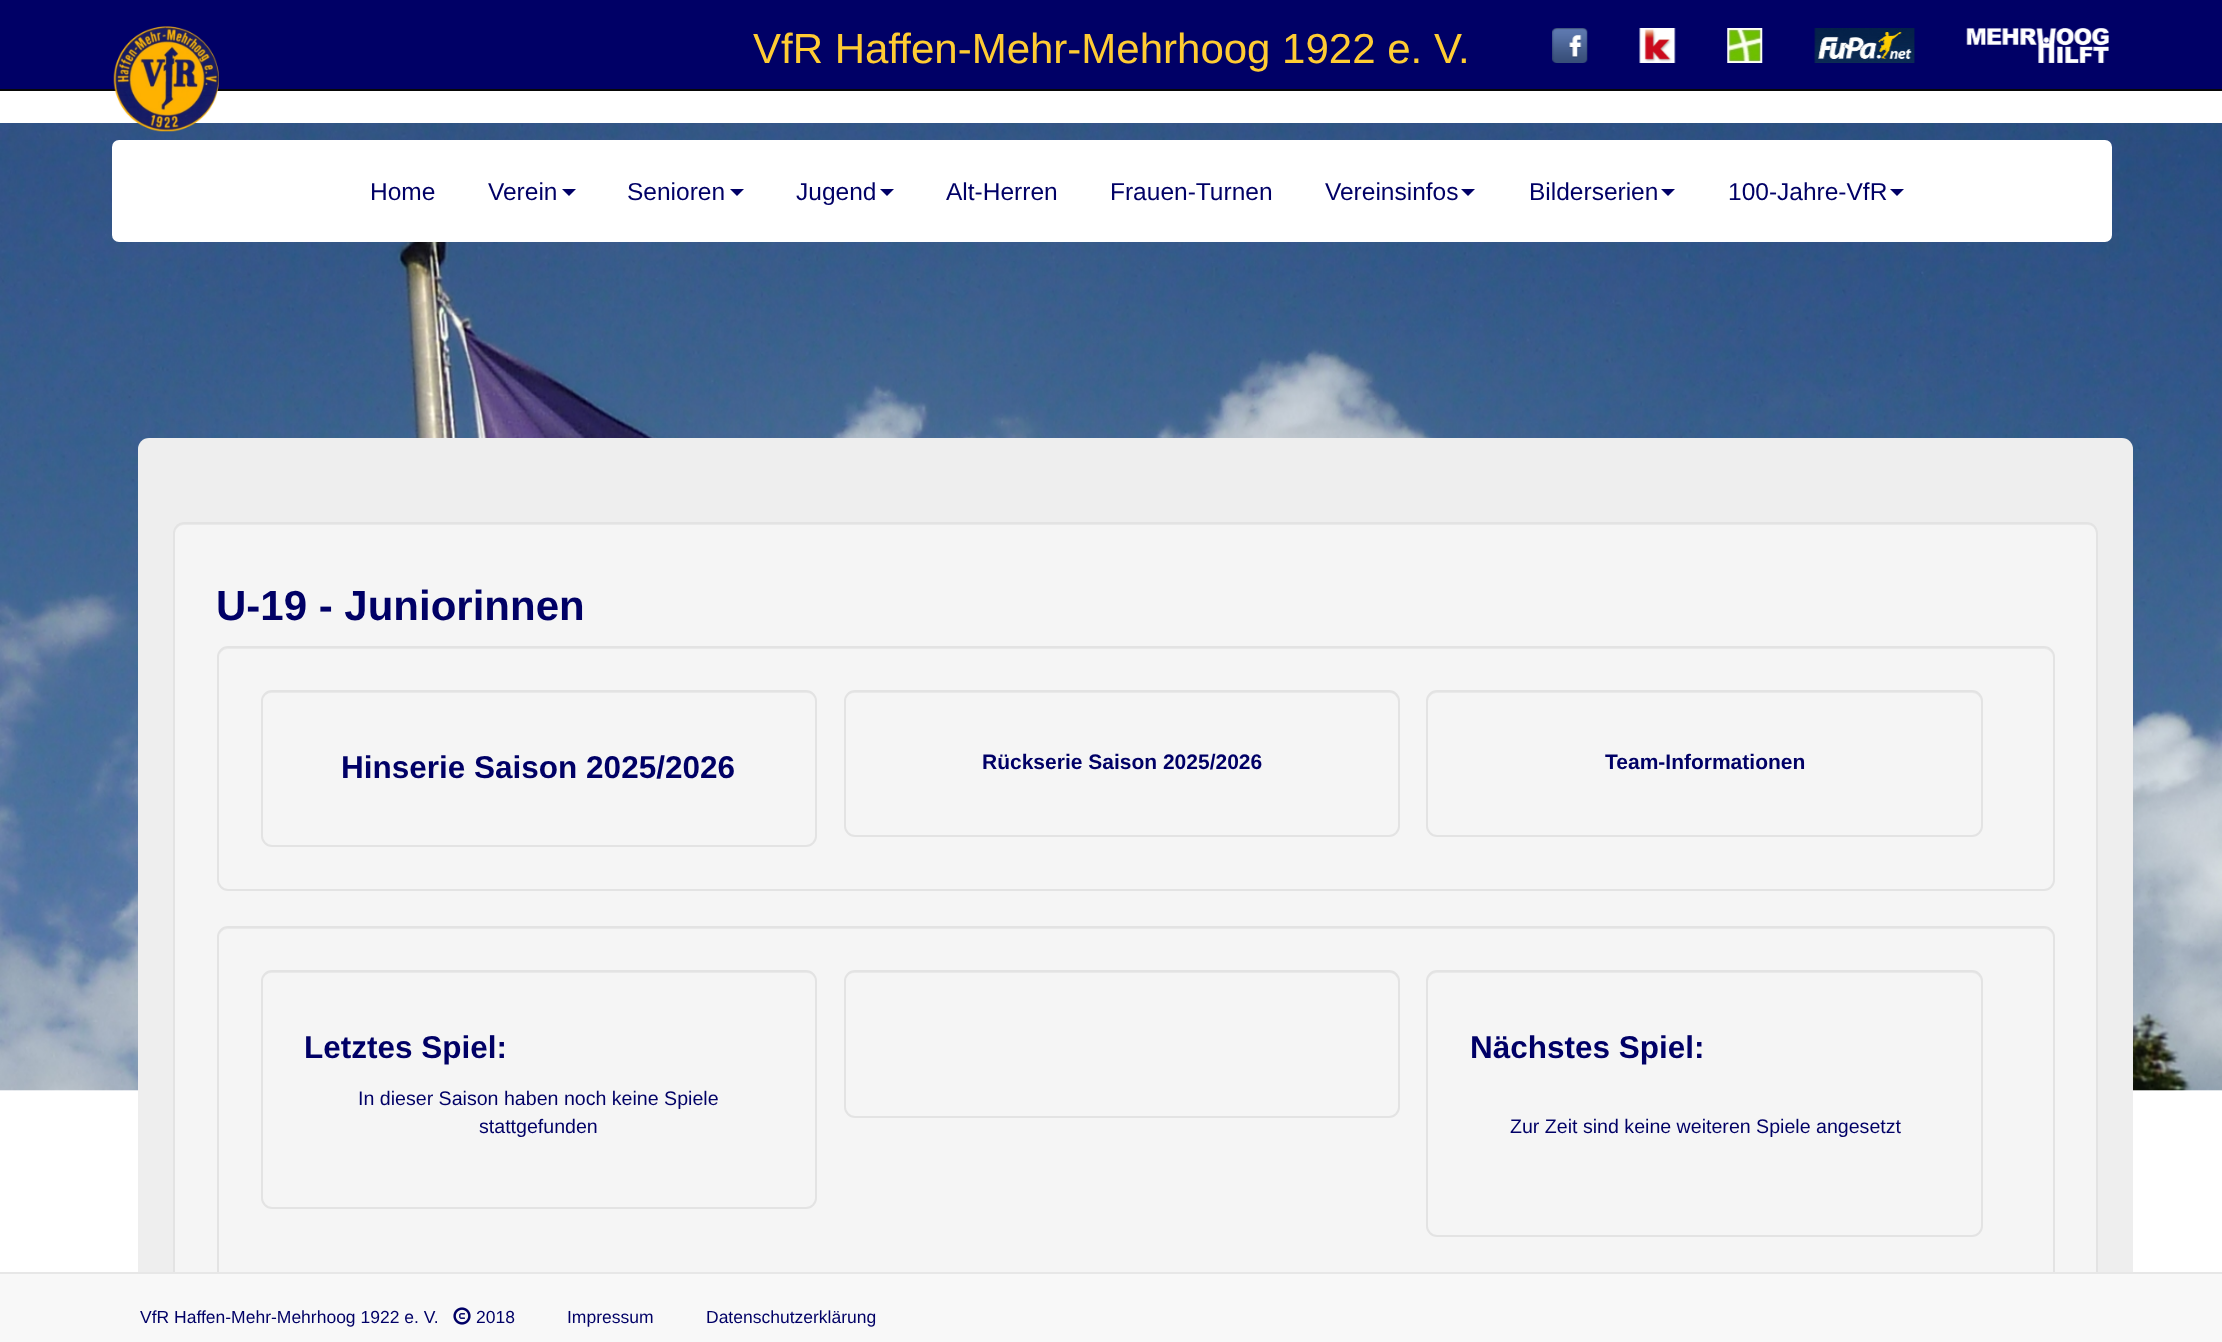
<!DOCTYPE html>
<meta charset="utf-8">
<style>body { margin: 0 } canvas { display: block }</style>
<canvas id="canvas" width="2222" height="1342"></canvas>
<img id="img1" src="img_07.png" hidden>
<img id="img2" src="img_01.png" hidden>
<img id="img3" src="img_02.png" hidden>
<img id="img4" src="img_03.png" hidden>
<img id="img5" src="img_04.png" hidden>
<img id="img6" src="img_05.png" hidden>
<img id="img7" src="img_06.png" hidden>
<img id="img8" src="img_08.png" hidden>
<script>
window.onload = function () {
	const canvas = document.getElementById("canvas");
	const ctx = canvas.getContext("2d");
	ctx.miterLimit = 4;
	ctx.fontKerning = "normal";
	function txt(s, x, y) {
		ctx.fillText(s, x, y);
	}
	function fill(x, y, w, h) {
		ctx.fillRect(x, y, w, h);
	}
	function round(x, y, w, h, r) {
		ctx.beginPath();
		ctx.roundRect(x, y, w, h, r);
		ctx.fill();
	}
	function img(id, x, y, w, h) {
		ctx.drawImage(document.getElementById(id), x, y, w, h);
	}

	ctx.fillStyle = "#FFFFFF";
	fill(0, 0, 2222, 1342);
	ctx.fillStyle = "#000066";
	fill(0, 0, 2222, 89);
	ctx.fillStyle = "#080808";
	fill(0, 89, 2222, 2);
	img("img1", 0, 123, 2222, 968);
	img("img2", 113, 26, 106, 106);
	img("img3", 1552, 28, 36, 35);
	img("img4", 1639, 28, 37, 35);
	img("img5", 1727, 28, 36, 35);
	img("img6", 1814, 28, 101, 35);
	img("img7", 1966, 28, 143, 35);
	ctx.fillStyle = "#FFFFFF";
	round(112, 140, 2000, 102, 7);
	ctx.fillStyle = "#000066";
	ctx.beginPath();
	ctx.moveTo(562, 189);
	ctx.lineTo(576, 189);
	ctx.lineTo(569, 196);
	ctx.closePath();
	ctx.fill();
	ctx.beginPath();
	ctx.moveTo(730, 189);
	ctx.lineTo(744, 189);
	ctx.lineTo(737, 196);
	ctx.closePath();
	ctx.fill();
	ctx.beginPath();
	ctx.moveTo(880, 189);
	ctx.lineTo(894, 189);
	ctx.lineTo(887, 196);
	ctx.closePath();
	ctx.fill();
	ctx.beginPath();
	ctx.moveTo(1461, 189);
	ctx.lineTo(1475, 189);
	ctx.lineTo(1468, 196);
	ctx.closePath();
	ctx.fill();
	ctx.beginPath();
	ctx.moveTo(1661, 189);
	ctx.lineTo(1675, 189);
	ctx.lineTo(1668, 196);
	ctx.closePath();
	ctx.fill();
	ctx.beginPath();
	ctx.moveTo(1890, 189);
	ctx.lineTo(1904, 189);
	ctx.lineTo(1897, 196);
	ctx.closePath();
	ctx.fill();
	ctx.fillStyle = "#EEEEEE";
	round(138, 438, 1995, 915, 11);
	ctx.fillStyle = "#F5F5F5";
	round(173, 522, 1925, 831, 11);
	ctx.fillStyle = "#E9E9E9";
	ctx.beginPath();
	ctx.moveTo(184, 525);
	ctx.lineTo(2088, 525);
	ctx.bezierCurveTo(2093, 525, 2096, 529, 2096, 534);
	ctx.lineTo(2096, 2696);
	ctx.bezierCurveTo(2097, 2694, 2097, 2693, 2097, 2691);
	ctx.lineTo(2097, 532);
	ctx.bezierCurveTo(2097, 527, 2093, 523, 2088, 523);
	ctx.lineTo(184, 523);
	ctx.bezierCurveTo(179, 523, 175, 527, 175, 532);
	ctx.lineTo(175, 534);
	ctx.bezierCurveTo(175, 529, 179, 525, 184, 525);
	ctx.closePath();
	ctx.fill();
	ctx.beginPath();
	ctx.roundRect(174, 523, 1923, 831, 10);
	ctx.strokeStyle = "#E3E3E3";
	ctx.lineWidth = 2;
	ctx.stroke();
	ctx.beginPath();
	ctx.moveTo(228, 649);
	ctx.lineTo(2044, 649);
	ctx.bezierCurveTo(2049, 649, 2053, 653, 2053, 658);
	ctx.bezierCurveTo(2053, 653, 2050, 648, 2044, 648);
	ctx.lineTo(228, 648);
	ctx.bezierCurveTo(222, 648, 219, 653, 219, 658);
	ctx.bezierCurveTo(219, 653, 223, 649, 228, 649);
	ctx.closePath();
	ctx.fill();
	ctx.beginPath();
	ctx.roundRect(218, 647, 1836, 243, 10);
	ctx.stroke();
	ctx.beginPath();
	ctx.moveTo(271, 693);
	ctx.lineTo(807, 693);
	ctx.bezierCurveTo(812, 693, 816, 697, 816, 702);
	ctx.lineTo(816, 700);
	ctx.bezierCurveTo(816, 695, 812, 691, 807, 691);
	ctx.lineTo(272, 691);
	ctx.bezierCurveTo(268, 691, 265, 693, 264, 697);
	ctx.bezierCurveTo(265, 695, 268, 693, 271, 693);
	ctx.closePath();
	ctx.fill();
	ctx.beginPath();
	ctx.roundRect(262, 691, 554, 155, 10);
	ctx.stroke();
	ctx.beginPath();
	ctx.moveTo(854, 693);
	ctx.lineTo(1390, 693);
	ctx.bezierCurveTo(1394, 693, 1398, 697, 1398, 702);
	ctx.lineTo(1398, 700);
	ctx.bezierCurveTo(1398, 695, 1394, 691, 1389, 691);
	ctx.lineTo(854, 691);
	ctx.bezierCurveTo(849, 691, 845, 695, 845, 700);
	ctx.lineTo(845, 702);
	ctx.bezierCurveTo(845, 697, 849, 693, 854, 693);
	ctx.closePath();
	ctx.fill();
	ctx.beginPath();
	ctx.roundRect(845, 691, 554, 145, 10);
	ctx.stroke();
	ctx.beginPath();
	ctx.moveTo(1437, 693);
	ctx.lineTo(1972, 693);
	ctx.bezierCurveTo(1977, 693, 1981, 697, 1981, 702);
	ctx.lineTo(1981, 700);
	ctx.bezierCurveTo(1981, 695, 1977, 691, 1972, 691);
	ctx.lineTo(1437, 691);
	ctx.bezierCurveTo(1432, 691, 1428, 695, 1428, 700);
	ctx.lineTo(1428, 702);
	ctx.bezierCurveTo(1428, 697, 1432, 693, 1437, 693);
	ctx.closePath();
	ctx.fill();
	ctx.beginPath();
	ctx.roundRect(1427, 691, 555, 145, 10);
	ctx.stroke();
	ctx.beginPath();
	ctx.moveTo(228, 929);
	ctx.lineTo(2044, 929);
	ctx.bezierCurveTo(2049, 929, 2053, 933, 2053, 938);
	ctx.bezierCurveTo(2053, 933, 2050, 928, 2044, 928);
	ctx.lineTo(228, 928);
	ctx.bezierCurveTo(222, 928, 219, 933, 219, 938);
	ctx.bezierCurveTo(219, 933, 223, 929, 228, 929);
	ctx.closePath();
	ctx.fill();
	ctx.beginPath();
	ctx.roundRect(218, 927, 1836, 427, 10);
	ctx.stroke();
	ctx.beginPath();
	ctx.moveTo(271, 973);
	ctx.lineTo(807, 973);
	ctx.bezierCurveTo(812, 973, 816, 977, 816, 982);
	ctx.lineTo(816, 980);
	ctx.bezierCurveTo(816, 975, 812, 971, 807, 971);
	ctx.lineTo(272, 971);
	ctx.bezierCurveTo(268, 971, 265, 973, 264, 977);
	ctx.bezierCurveTo(265, 975, 268, 973, 271, 973);
	ctx.closePath();
	ctx.fill();
	ctx.beginPath();
	ctx.roundRect(262, 971, 554, 237, 10);
	ctx.stroke();
	ctx.beginPath();
	ctx.moveTo(854, 973);
	ctx.lineTo(1390, 973);
	ctx.bezierCurveTo(1394, 973, 1398, 977, 1398, 982);
	ctx.lineTo(1398, 980);
	ctx.bezierCurveTo(1398, 975, 1394, 971, 1389, 971);
	ctx.lineTo(854, 971);
	ctx.bezierCurveTo(849, 971, 845, 975, 845, 980);
	ctx.lineTo(845, 982);
	ctx.bezierCurveTo(845, 977, 849, 973, 854, 973);
	ctx.closePath();
	ctx.fill();
	ctx.beginPath();
	ctx.roundRect(845, 971, 554, 146, 10);
	ctx.stroke();
	ctx.beginPath();
	ctx.moveTo(1437, 973);
	ctx.lineTo(1972, 973);
	ctx.bezierCurveTo(1977, 973, 1981, 977, 1981, 982);
	ctx.lineTo(1981, 980);
	ctx.bezierCurveTo(1981, 975, 1977, 971, 1972, 971);
	ctx.lineTo(1437, 971);
	ctx.bezierCurveTo(1432, 971, 1428, 975, 1428, 980);
	ctx.lineTo(1428, 982);
	ctx.bezierCurveTo(1428, 977, 1432, 973, 1437, 973);
	ctx.closePath();
	ctx.fill();
	ctx.beginPath();
	ctx.roundRect(1427, 971, 555, 265, 10);
	ctx.stroke();
	ctx.fillStyle = "#F8F8F8";
	fill(0, 1274, 2222, 68);
	ctx.fillStyle = "#E7E7E7";
	fill(0, 1272, 2222, 2);
	img("img8", 453, 1307, 18, 18);
	ctx.font = "42px Liberation Sans";
	ctx.fillStyle = "#FFCC33";
	txt("VfR Haffen-Mehr-Mehrhoog 1922 e. V.", 753, 63);
	ctx.font = "24.5px Liberation Sans";
	ctx.fillStyle = "#000066";
	txt("Home", 370, 200);
	txt("Verein", 488, 200);
	txt("Senioren", 627, 200);
	txt("Jugend", 796, 200);
	txt("Alt-Herren", 946, 200);
	txt("Frauen-Turnen", 1110, 200);
	txt("Vereinsinfos", 1325, 200);
	txt("Bilderserien", 1529, 200);
	txt("100-Jahre-VfR", 1728, 200);
	ctx.font = "bold 42px Liberation Sans";
	txt("U-19 - Juniorinnen", 216, 620);
	ctx.font = "bold 31.5px Liberation Sans";
	txt("Hinserie Saison 2025/2026", 341, 778);
	ctx.font = "bold 21px Liberation Sans";
	txt("Rückserie Saison 2025/2026", 982, 769);
	txt("Team-Informationen", 1605, 769);
	ctx.font = "bold 31.5px Liberation Sans";
	txt("Letztes Spiel:", 304, 1058);
	ctx.font = "19.6px Liberation Sans";
	txt("In dieser Saison haben noch keine Spiele", 358, 1105);
	txt("stattgefunden", 479, 1133);
	ctx.font = "bold 31.5px Liberation Sans";
	txt("Nächstes Spiel:", 1470, 1058);
	ctx.font = "19.6px Liberation Sans";
	txt("Zur Zeit sind keine weiteren Spiele angesetzt", 1510, 1133);
	ctx.font = "17.5px Liberation Sans";
	txt("VfR Haffen-Mehr-Mehrhoog 1922 e. V.", 140, 1323);
	txt("2018", 476, 1323);
	txt("Impressum", 567, 1323);
	txt("Datenschutzerklärung", 706, 1323);
};
</script>
